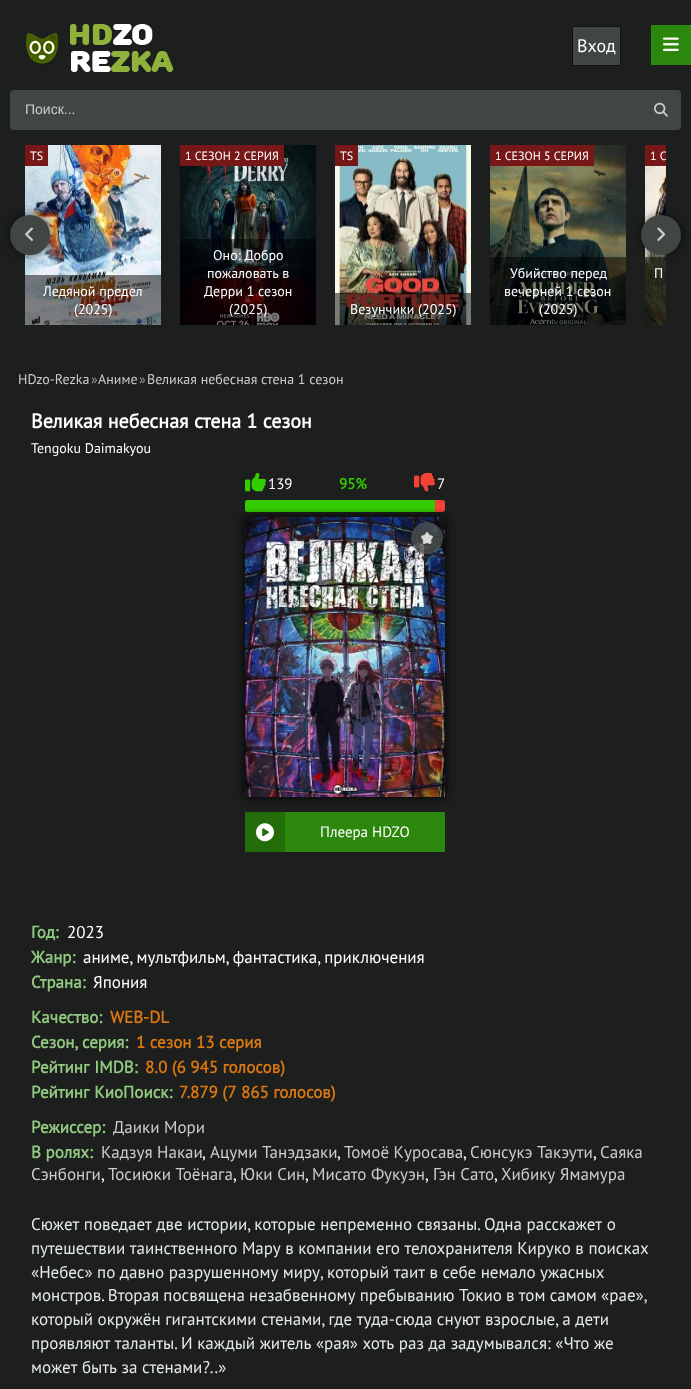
<!DOCTYPE html>
<meta charset="utf-8">
<style>body { margin: 0 } canvas { display: block }</style>
<canvas id="canvas" width="691" height="1389"></canvas>
<img id="img1" src="img_01.png" hidden>
<img id="img2" src="img_02.png" hidden>
<img id="img3" src="img_03.png" hidden>
<img id="img4" src="img_04.png" hidden>
<img id="img5" src="img_05.png" hidden>
<img id="img6" src="img_06.png" hidden>
<img id="img7" src="img_07.png" hidden>
<img id="img8" src="img_08.png" hidden>
<img id="img9" src="img_09.png" hidden>
<img id="img10" src="img_10.png" hidden>
<img id="img11" src="img_11.png" hidden>
<img id="img12" src="img_12.png" hidden>
<img id="img13" src="img_13.png" hidden>
<img id="img14" src="img_14.png" hidden>
<img id="img15" src="img_15.png" hidden>
<script>
window.onload = function () {
	const canvas = document.getElementById("canvas");
	const ctx = canvas.getContext("2d");
	ctx.miterLimit = 4;
	ctx.fontKerning = "normal";
	function txt(s, x, y) {
		ctx.fillText(s, x, y);
	}
	function fill(x, y, w, h) {
		ctx.fillRect(x, y, w, h);
	}
	function round(x, y, w, h, r) {
		ctx.beginPath();
		ctx.roundRect(x, y, w, h, r);
		ctx.fill();
	}
	function img(id, x, y, w, h) {
		ctx.drawImage(document.getElementById(id), x, y, w, h);
	}

	ctx.fillStyle = "#1C1F1D";
	fill(0, 0, 691, 1389);
	img("img1", 26, 24, 148, 48);
	ctx.fillStyle = "#414643";
	ctx.beginPath();
	ctx.rect(572.5, 26.5, 48, 39);
	ctx.fill();
	ctx.strokeStyle = "#111111";
	ctx.stroke();
	ctx.fillStyle = "#2B880C";
	fill(651, 25, 40, 40);
	img("img2", 663, 37, 16, 14);
	ctx.fillStyle = "#414643";
	round(10, 90, 671, 40, 4);
	img("img3", 654, 102, 14, 15);
	img("img4", 25, 145, 136, 180);
	ctx.fillStyle = "#771818";
	fill(25, 145, 23, 21);
	ctx.fillStyle = "rgba(0, 0, 0, 0.5)";
	fill(25, 275, 136, 50);
	img("img5", 180, 145, 136, 180);
	ctx.fillStyle = "#771818";
	fill(180, 145, 104, 21);
	ctx.fillStyle = "rgba(0, 0, 0, 0.5)";
	fill(180, 239, 136, 86);
	img("img6", 335, 145, 136, 180);
	ctx.fillStyle = "#771818";
	fill(335, 145, 23, 21);
	ctx.fillStyle = "rgba(0, 0, 0, 0.5)";
	fill(335, 293, 136, 32);
	img("img7", 490, 145, 136, 180);
	ctx.fillStyle = "#771818";
	fill(490, 145, 104, 21);
	ctx.fillStyle = "rgba(0, 0, 0, 0.5)";
	fill(490, 257, 136, 68);
	ctx.fillStyle = "#771818";
	fill(645, 145, 21, 21);
	img("img8", 645, 166, 21, 159);
	ctx.fillStyle = "rgba(0, 0, 0, 0.5)";
	fill(645, 257, 21, 68);
	ctx.fillStyle = "rgba(0, 0, 0, 0.6)";
	ctx.filter = "blur(5px)";
	ctx.beginPath();
	ctx.roundRect(10, 215, 40, 40, 20);
	ctx.fill();
	ctx.filter = "none";
	ctx.fillStyle = "#414643";
	ctx.beginPath();
	ctx.arc(30, 235, 20, 0, Math.PI * 2);
	ctx.fill();
	img("img9", 25, 227, 8, 14);
	ctx.fillStyle = "rgba(0, 0, 0, 0.6)";
	ctx.filter = "blur(5px)";
	ctx.beginPath();
	ctx.roundRect(641, 215, 40, 40, 20);
	ctx.fill();
	ctx.filter = "none";
	ctx.fillStyle = "#414643";
	ctx.beginPath();
	ctx.arc(661, 235, 20, 0, Math.PI * 2);
	ctx.fill();
	img("img10", 657, 227, 9, 14);
	img("img11", 245, 473, 21, 19);
	img("img12", 414, 472, 21, 20);
	ctx.fillStyle = "#F44336";
	round(245, 500, 200, 12, 3);
	ctx.fillStyle = "#33CC00";
	ctx.beginPath();
	ctx.roundRect(245, 500, 190, 12, [3, 0, 0, 3]);
	ctx.fill();
	ctx.fillStyle = "#000000";
	ctx.filter = "blur(5px)";
	ctx.beginPath();
	ctx.rect(245, 517, 200, 280);
	ctx.fill();
	ctx.filter = "none";
	img("img13", 245, 517, 200, 280);
	ctx.fillStyle = "rgba(75, 79, 76, 0.8)";
	ctx.beginPath();
	ctx.arc(427, 538, 16, 0, Math.PI * 2);
	ctx.fill();
	img("img14", 421, 532, 12, 13);
	ctx.fillStyle = "#2B880C";
	fill(285, 812, 160, 40);
	ctx.fillStyle = "#226D0A";
	fill(245, 812, 40, 40);
	img("img15", 256, 823, 18, 19);
	ctx.font = "18px PT Sans";
	ctx.fillStyle = "#FFFFFF";
	txt("Вход", 577, 52);
	ctx.font = "14px Liberation Sans";
	ctx.fillStyle = "#CCCCCC";
	txt("Поиск...", 25, 114);
	ctx.font = "12px PT Sans";
	ctx.fillStyle = "#FFFFFF";
	txt("TS", 30, 160);
	ctx.font = "14px PT Sans";
	txt("Ледяной предел", 43, 296);
	txt("(2025)", 74, 314);
	ctx.font = "12px PT Sans";
	txt("1 СЕЗОН 2 СЕРИЯ", 185, 160);
	ctx.font = "14px PT Sans";
	txt("Оно: Добро", 213, 260);
	txt("пожаловать в", 207, 278);
	txt("Дерри 1 сезон", 204, 296);
	txt("(2025)", 229, 314);
	ctx.font = "12px PT Sans";
	txt("TS", 340, 160);
	ctx.font = "14px PT Sans";
	txt("Везунчики (2025)", 350, 314);
	ctx.font = "12px PT Sans";
	txt("1 СЕЗОН 5 СЕРИЯ", 495, 160);
	ctx.font = "14px PT Sans";
	txt("Убийство перед", 510, 278);
	txt("вечерней 1 сезон", 504, 296);
	txt("(2025)", 539, 314);
	ctx.font = "12px PT Sans";
	txt("1 С", 650, 160);
	ctx.font = "14px PT Sans";
	txt("П", 654, 278);
	ctx.fillStyle = "#CCCCCC";
	txt("HDzo-Rezka", 18, 384);
	ctx.fillStyle = "#999999";
	txt("»", 91, 384);
	ctx.fillStyle = "#CCCCCC";
	txt("Аниме", 98, 384);
	ctx.fillStyle = "#999999";
	txt("»", 139, 384);
	ctx.fillStyle = "#CCCCCC";
	txt("Великая небесная стена 1 сезон", 147, 384);
	ctx.font = "bold 20px PT Sans";
	ctx.fillStyle = "#FFFFFF";
	txt("Великая небесная стена 1 сезон", 31, 428);
	ctx.font = "14px PT Sans";
	txt("Tengoku Daimakyou", 31, 453);
	ctx.font = "15px PT Sans";
	txt("139", 268, 489);
	ctx.font = "bold 15px PT Sans";
	ctx.fillStyle = "#33CC00";
	txt("95%", 339, 489);
	ctx.font = "15px PT Sans";
	ctx.fillStyle = "#FFFFFF";
	txt("7", 437, 489);
	txt("Плеера HDZO", 320, 837);
	ctx.font = "bold 17px PT Sans";
	ctx.fillStyle = "#92C980";
	txt("Год:", 31, 938);
	ctx.font = "17px PT Sans";
	ctx.fillStyle = "#FFFFFF";
	txt("2023", 67, 938);
	ctx.font = "bold 17px PT Sans";
	ctx.fillStyle = "#92C980";
	txt("Жанр:", 31, 963);
	ctx.font = "17px PT Sans";
	ctx.fillStyle = "#FFFFFF";
	txt("аниме, мультфильм, фантастика, приключения", 83, 963);
	ctx.font = "bold 17px PT Sans";
	ctx.fillStyle = "#92C980";
	txt("Страна:", 31, 988);
	ctx.font = "17px PT Sans";
	ctx.fillStyle = "#FFFFFF";
	txt("Япония", 93, 988);
	ctx.font = "bold 17px PT Sans";
	ctx.fillStyle = "#92C980";
	txt("Качество:", 31, 1023);
	ctx.fillStyle = "#D87612";
	txt("WEB-DL", 110, 1023);
	ctx.wordSpacing = "-1px";
	ctx.fillStyle = "#92C980";
	txt("Сезон, серия:", 31, 1048);
	ctx.wordSpacing = "0px";
	ctx.fillStyle = "#D87612";
	txt("1 сезон 13 серия", 136, 1048);
	ctx.wordSpacing = "1px";
	ctx.fillStyle = "#92C980";
	txt("Рейтинг IMDB:", 31, 1073);
	ctx.wordSpacing = "0px";
	ctx.fillStyle = "#D87612";
	txt("8.0 (6 945 голосов)", 145, 1073);
	ctx.wordSpacing = "1px";
	ctx.fillStyle = "#92C980";
	txt("Рейтинг КиоПоиск:", 31, 1098);
	ctx.wordSpacing = "0px";
	ctx.fillStyle = "#D87612";
	txt("7.879 (7 865 голосов)", 179, 1098);
	ctx.fillStyle = "#92C980";
	txt("Режиссер:", 31, 1133);
	ctx.font = "17px PT Sans";
	ctx.fillStyle = "#CCCCCC";
	txt("Даики Мори", 113, 1133);
	ctx.font = "bold 17px PT Sans";
	ctx.fillStyle = "#92C980";
	txt("В ролях:", 31, 1158);
	ctx.font = "17px PT Sans";
	ctx.fillStyle = "#CCCCCC";
	txt("Кадзуя Накаи", 101, 1158);
	ctx.fillStyle = "#FFFFFF";
	txt(",", 202, 1158);
	ctx.fillStyle = "#CCCCCC";
	txt("Ацуми Танэдзаки", 210, 1158);
	ctx.fillStyle = "#FFFFFF";
	txt(",", 337, 1158);
	ctx.fillStyle = "#CCCCCC";
	txt("Томоё Куросава", 344, 1158);
	ctx.fillStyle = "#FFFFFF";
	txt(",", 463, 1158);
	ctx.fillStyle = "#CCCCCC";
	txt("Сюнсукэ Такэути", 470, 1158);
	ctx.fillStyle = "#FFFFFF";
	txt(",", 593, 1158);
	ctx.fillStyle = "#CCCCCC";
	txt("Саяка", 600, 1158);
	txt("Сэнбонги", 31, 1180);
	ctx.fillStyle = "#FFFFFF";
	txt(",", 101, 1180);
	ctx.fillStyle = "#CCCCCC";
	txt("Тосиюки Тоёнага", 108, 1180);
	ctx.fillStyle = "#FFFFFF";
	txt(",", 233, 1180);
	ctx.fillStyle = "#CCCCCC";
	txt("Юки Син", 240, 1180);
	ctx.fillStyle = "#FFFFFF";
	txt(",", 305, 1180);
	ctx.fillStyle = "#CCCCCC";
	txt("Мисато Фукуэн", 312, 1180);
	ctx.fillStyle = "#FFFFFF";
	txt(",", 425, 1180);
	ctx.fillStyle = "#CCCCCC";
	txt("Гэн Сато", 433, 1180);
	ctx.fillStyle = "#FFFFFF";
	txt(",", 494, 1180);
	ctx.fillStyle = "#CCCCCC";
	txt("Хибику Ямамура", 501, 1180);
	ctx.fillStyle = "#E6EAE4";
	txt("Сюжет поведает две истории, которые непременно связаны. Одна расскажет о", 31, 1230);
	txt("путешествии таинственного Мару в компании его телохранителя Кируко в поисках", 31, 1254);
	txt("«Небес» по давно разрушенному миру, который таит в себе немало ужасных", 31, 1278);
	ctx.wordSpacing = "-0.25px";
	txt("монстров. Вторая посвящена незабвенному пребыванию Токио в том самом «рае»,", 31, 1301);
	ctx.wordSpacing = "0px";
	txt("который окружён гигантскими стенами, где туда-сюда снуют взрослые, а дети", 31, 1325);
	txt("проявляют таланты. И каждый житель «рая» хоть раз да задумывался: «Что же", 31, 1349);
	txt("может быть за стенами?..»", 31, 1373);
};
</script>
